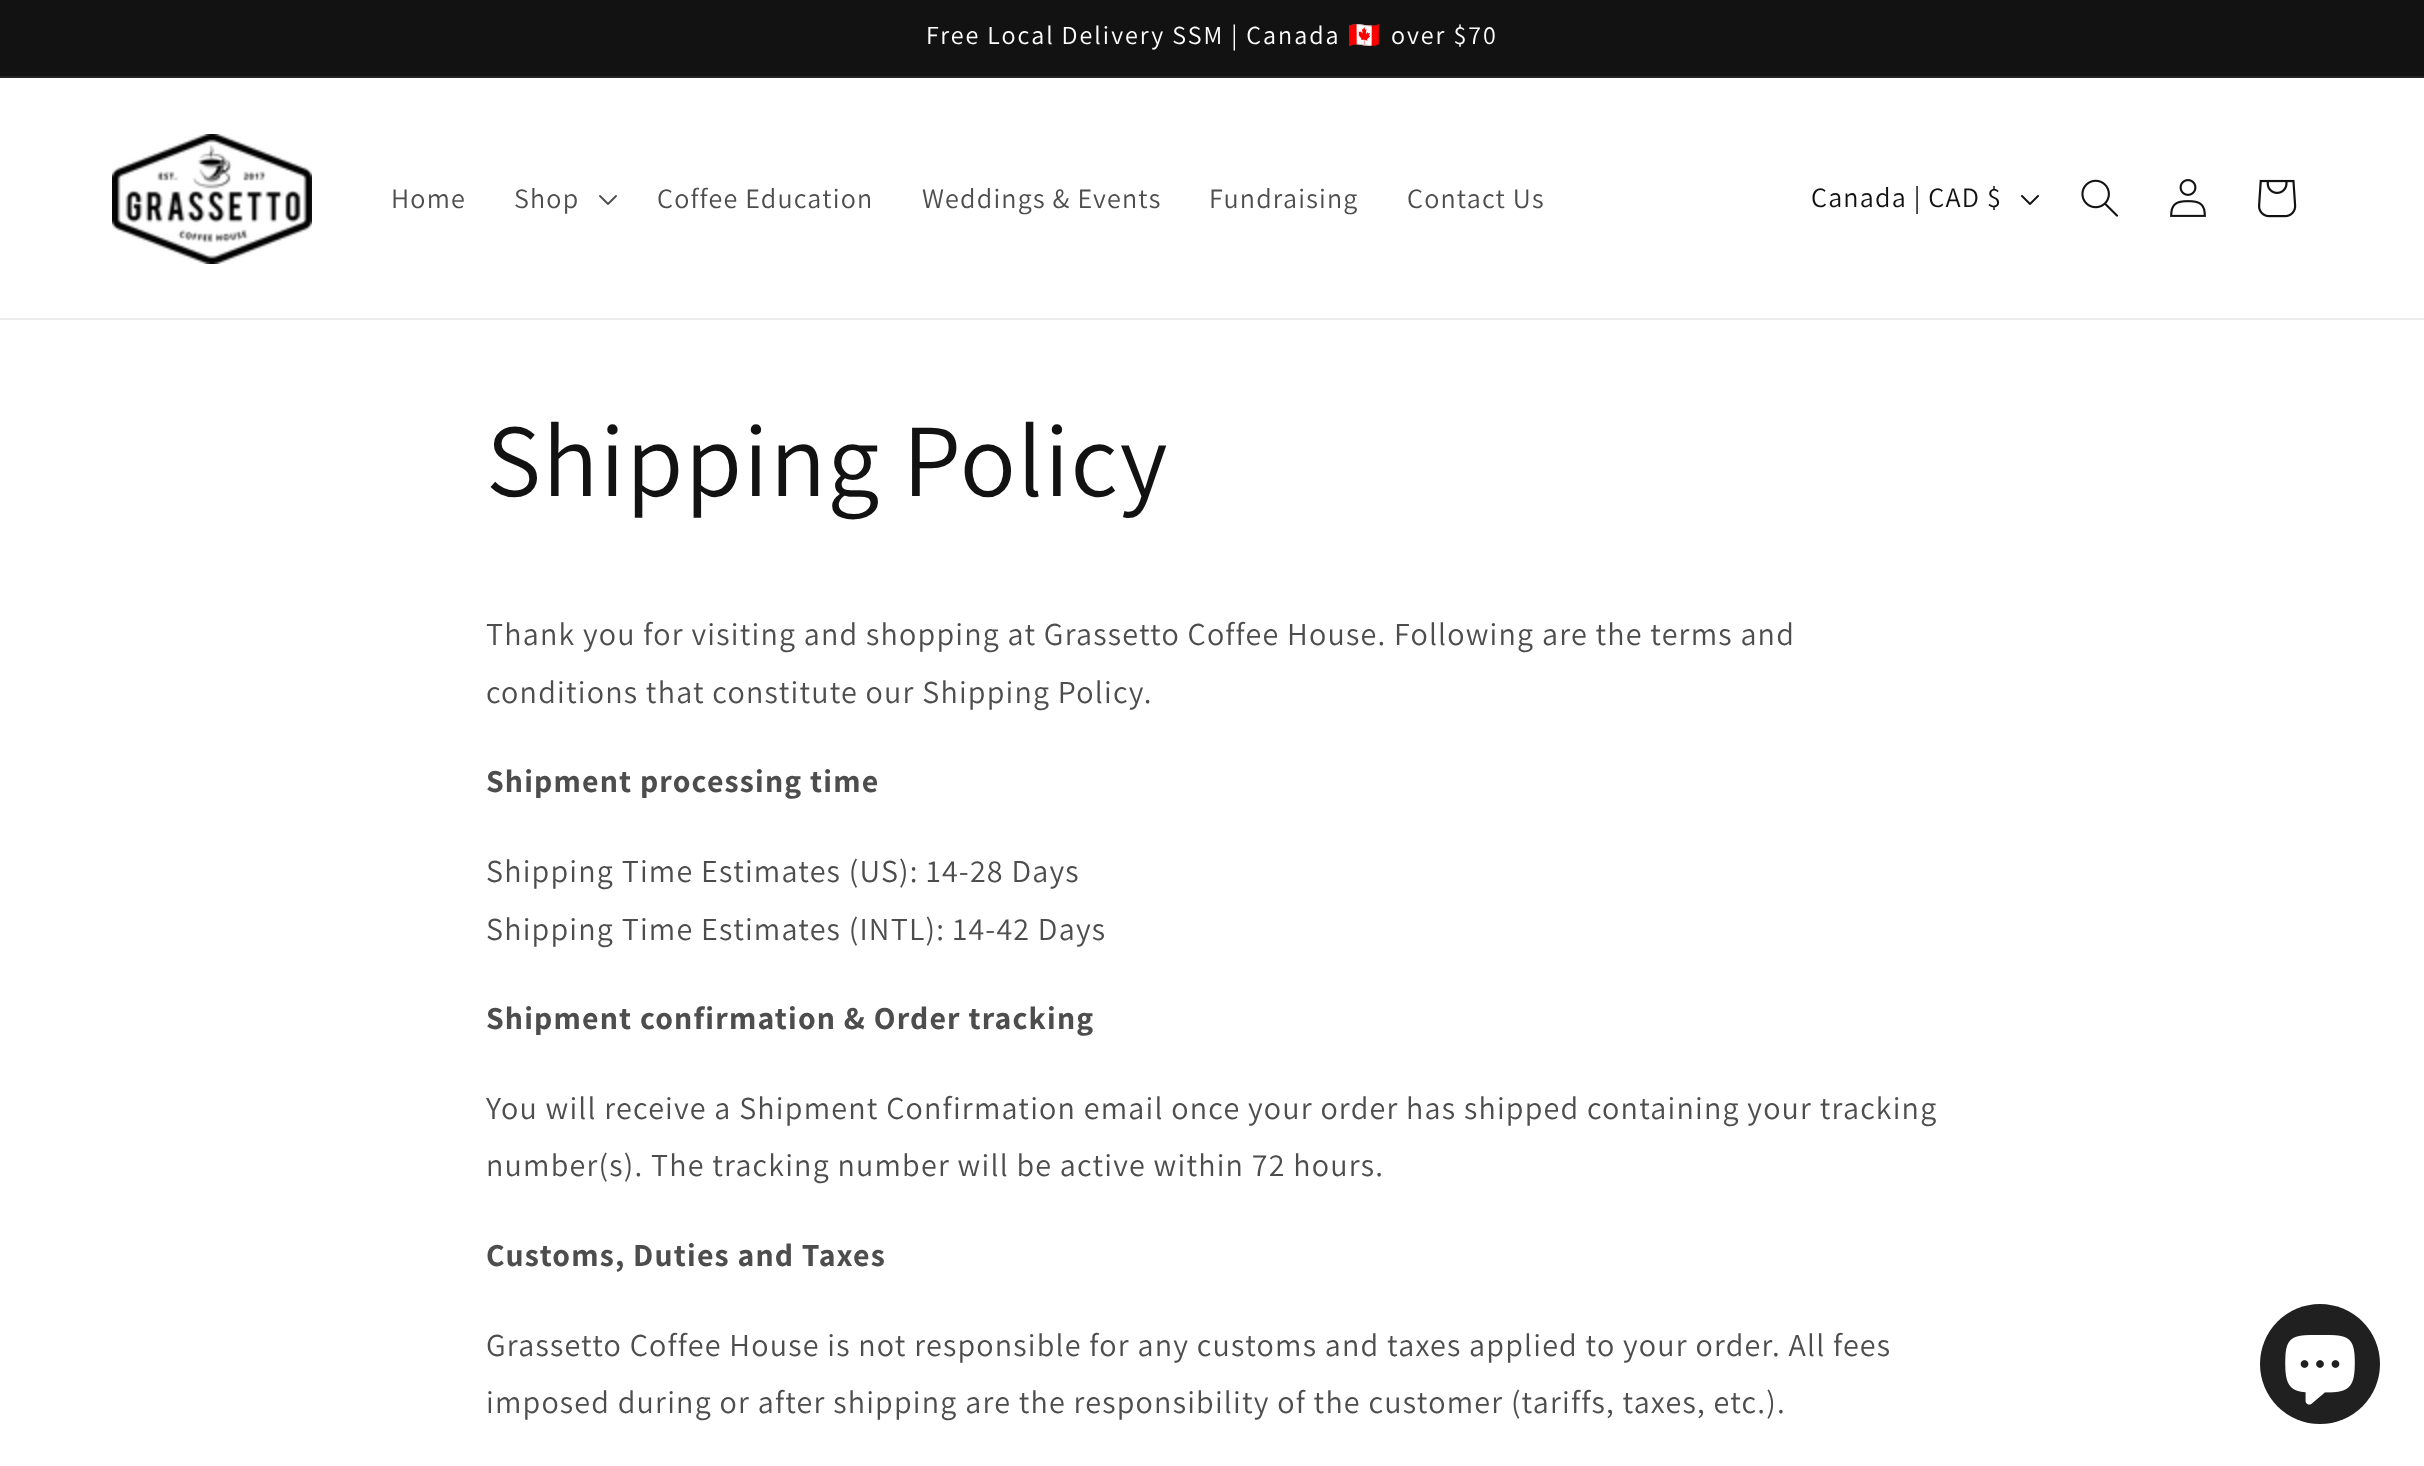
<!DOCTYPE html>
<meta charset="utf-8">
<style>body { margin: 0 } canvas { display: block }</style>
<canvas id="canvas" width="2424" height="1466"></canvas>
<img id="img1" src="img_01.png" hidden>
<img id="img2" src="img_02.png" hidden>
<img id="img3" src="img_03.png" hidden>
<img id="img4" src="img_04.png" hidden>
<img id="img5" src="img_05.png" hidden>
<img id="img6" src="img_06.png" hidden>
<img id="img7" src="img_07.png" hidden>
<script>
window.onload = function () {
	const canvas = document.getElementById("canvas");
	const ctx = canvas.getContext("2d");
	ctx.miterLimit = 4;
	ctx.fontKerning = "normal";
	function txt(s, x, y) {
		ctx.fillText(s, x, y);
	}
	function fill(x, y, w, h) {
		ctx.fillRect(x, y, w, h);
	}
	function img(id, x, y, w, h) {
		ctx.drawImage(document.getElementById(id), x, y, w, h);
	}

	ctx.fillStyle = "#FFFFFF";
	fill(0, 0, 2424, 1466);
	ctx.fillStyle = "#121212";
	fill(0, 0, 2424, 76);
	ctx.fillStyle = "#252525";
	fill(0, 76, 2424, 2);
	ctx.fillStyle = "#ECECEC";
	fill(0, 318, 2424, 2);
	img("img1", 112, 134, 200, 130);
	img("img2", 599, 195, 18, 10);
	img("img3", 2021, 195, 18, 10);
	img("img4", 2081, 179, 37, 38);
	img("img5", 2170, 179, 36, 38);
	img("img6", 2258, 179, 39, 39);
	ctx.fillStyle = "#202020";
	ctx.beginPath();
	ctx.arc(2320, 1364, 60, 0, Math.PI * 2);
	ctx.fill();
	img("img7", 2285, 1335, 70, 70);
	ctx.letterSpacing = "2px";
	ctx.wordSpacing = "-0.25px";
	ctx.font = "26px Assistant";
	ctx.fillStyle = "#FFFFFF";
	txt("Free Local Delivery SSM | Canada", 926, 44);
	ctx.wordSpacing = "0px";
	ctx.font = "26px Noto Color Emoji";
	txt("🇨🇦", 1348, 44);
	ctx.wordSpacing = "-0.25px";
	ctx.font = "26px Assistant";
	txt("over $70", 1391, 44);
	ctx.letterSpacing = "1.2px";
	ctx.wordSpacing = "0px";
	ctx.font = "28px Assistant";
	ctx.fillStyle = "#4D4D4D";
	txt("Home", 391, 208);
	txt("Shop", 514, 208);
	txt("Coffee Education", 657, 208);
	txt("Weddings & Events", 922, 208);
	txt("Fundraising", 1209, 208);
	txt("Contact Us", 1407, 208);
	ctx.fillStyle = "#121212";
	txt("Canada | CAD $", 1811, 207);
	ctx.font = "104px Assistant";
	txt("Shipping Policy", 486, 496);
	ctx.font = "32px Assistant";
	ctx.fillStyle = "#4D4D4D";
	txt("Thank you for visiting and shopping at Grassetto Coffee House. Following are the terms and", 486, 645);
	txt("conditions that constitute our Shipping Policy.", 486, 703);
	ctx.font = "bold 32px Assistant";
	txt("Shipment processing time", 486, 792);
	ctx.font = "32px Assistant";
	txt("Shipping Time Estimates (US): 14-28 Days", 486, 882);
	txt("Shipping Time Estimates (INTL): 14-42 Days", 486, 940);
	ctx.font = "bold 32px Assistant";
	txt("Shipment confirmation & Order tracking", 486, 1029);
	ctx.font = "32px Assistant";
	txt("You will receive a Shipment Confirmation email once your order has shipped containing your tracking", 486, 1119);
	txt("number(s). The tracking number will be active within 72 hours.", 486, 1176);
	ctx.font = "bold 32px Assistant";
	txt("Customs, Duties and Taxes", 486, 1266);
	ctx.font = "32px Assistant";
	txt("Grassetto Coffee House is not responsible for any customs and taxes applied to your order. All fees", 486, 1356);
	txt("imposed during or after shipping are the responsibility of the customer (tariffs, taxes, etc.).", 486, 1413);
};
</script>
